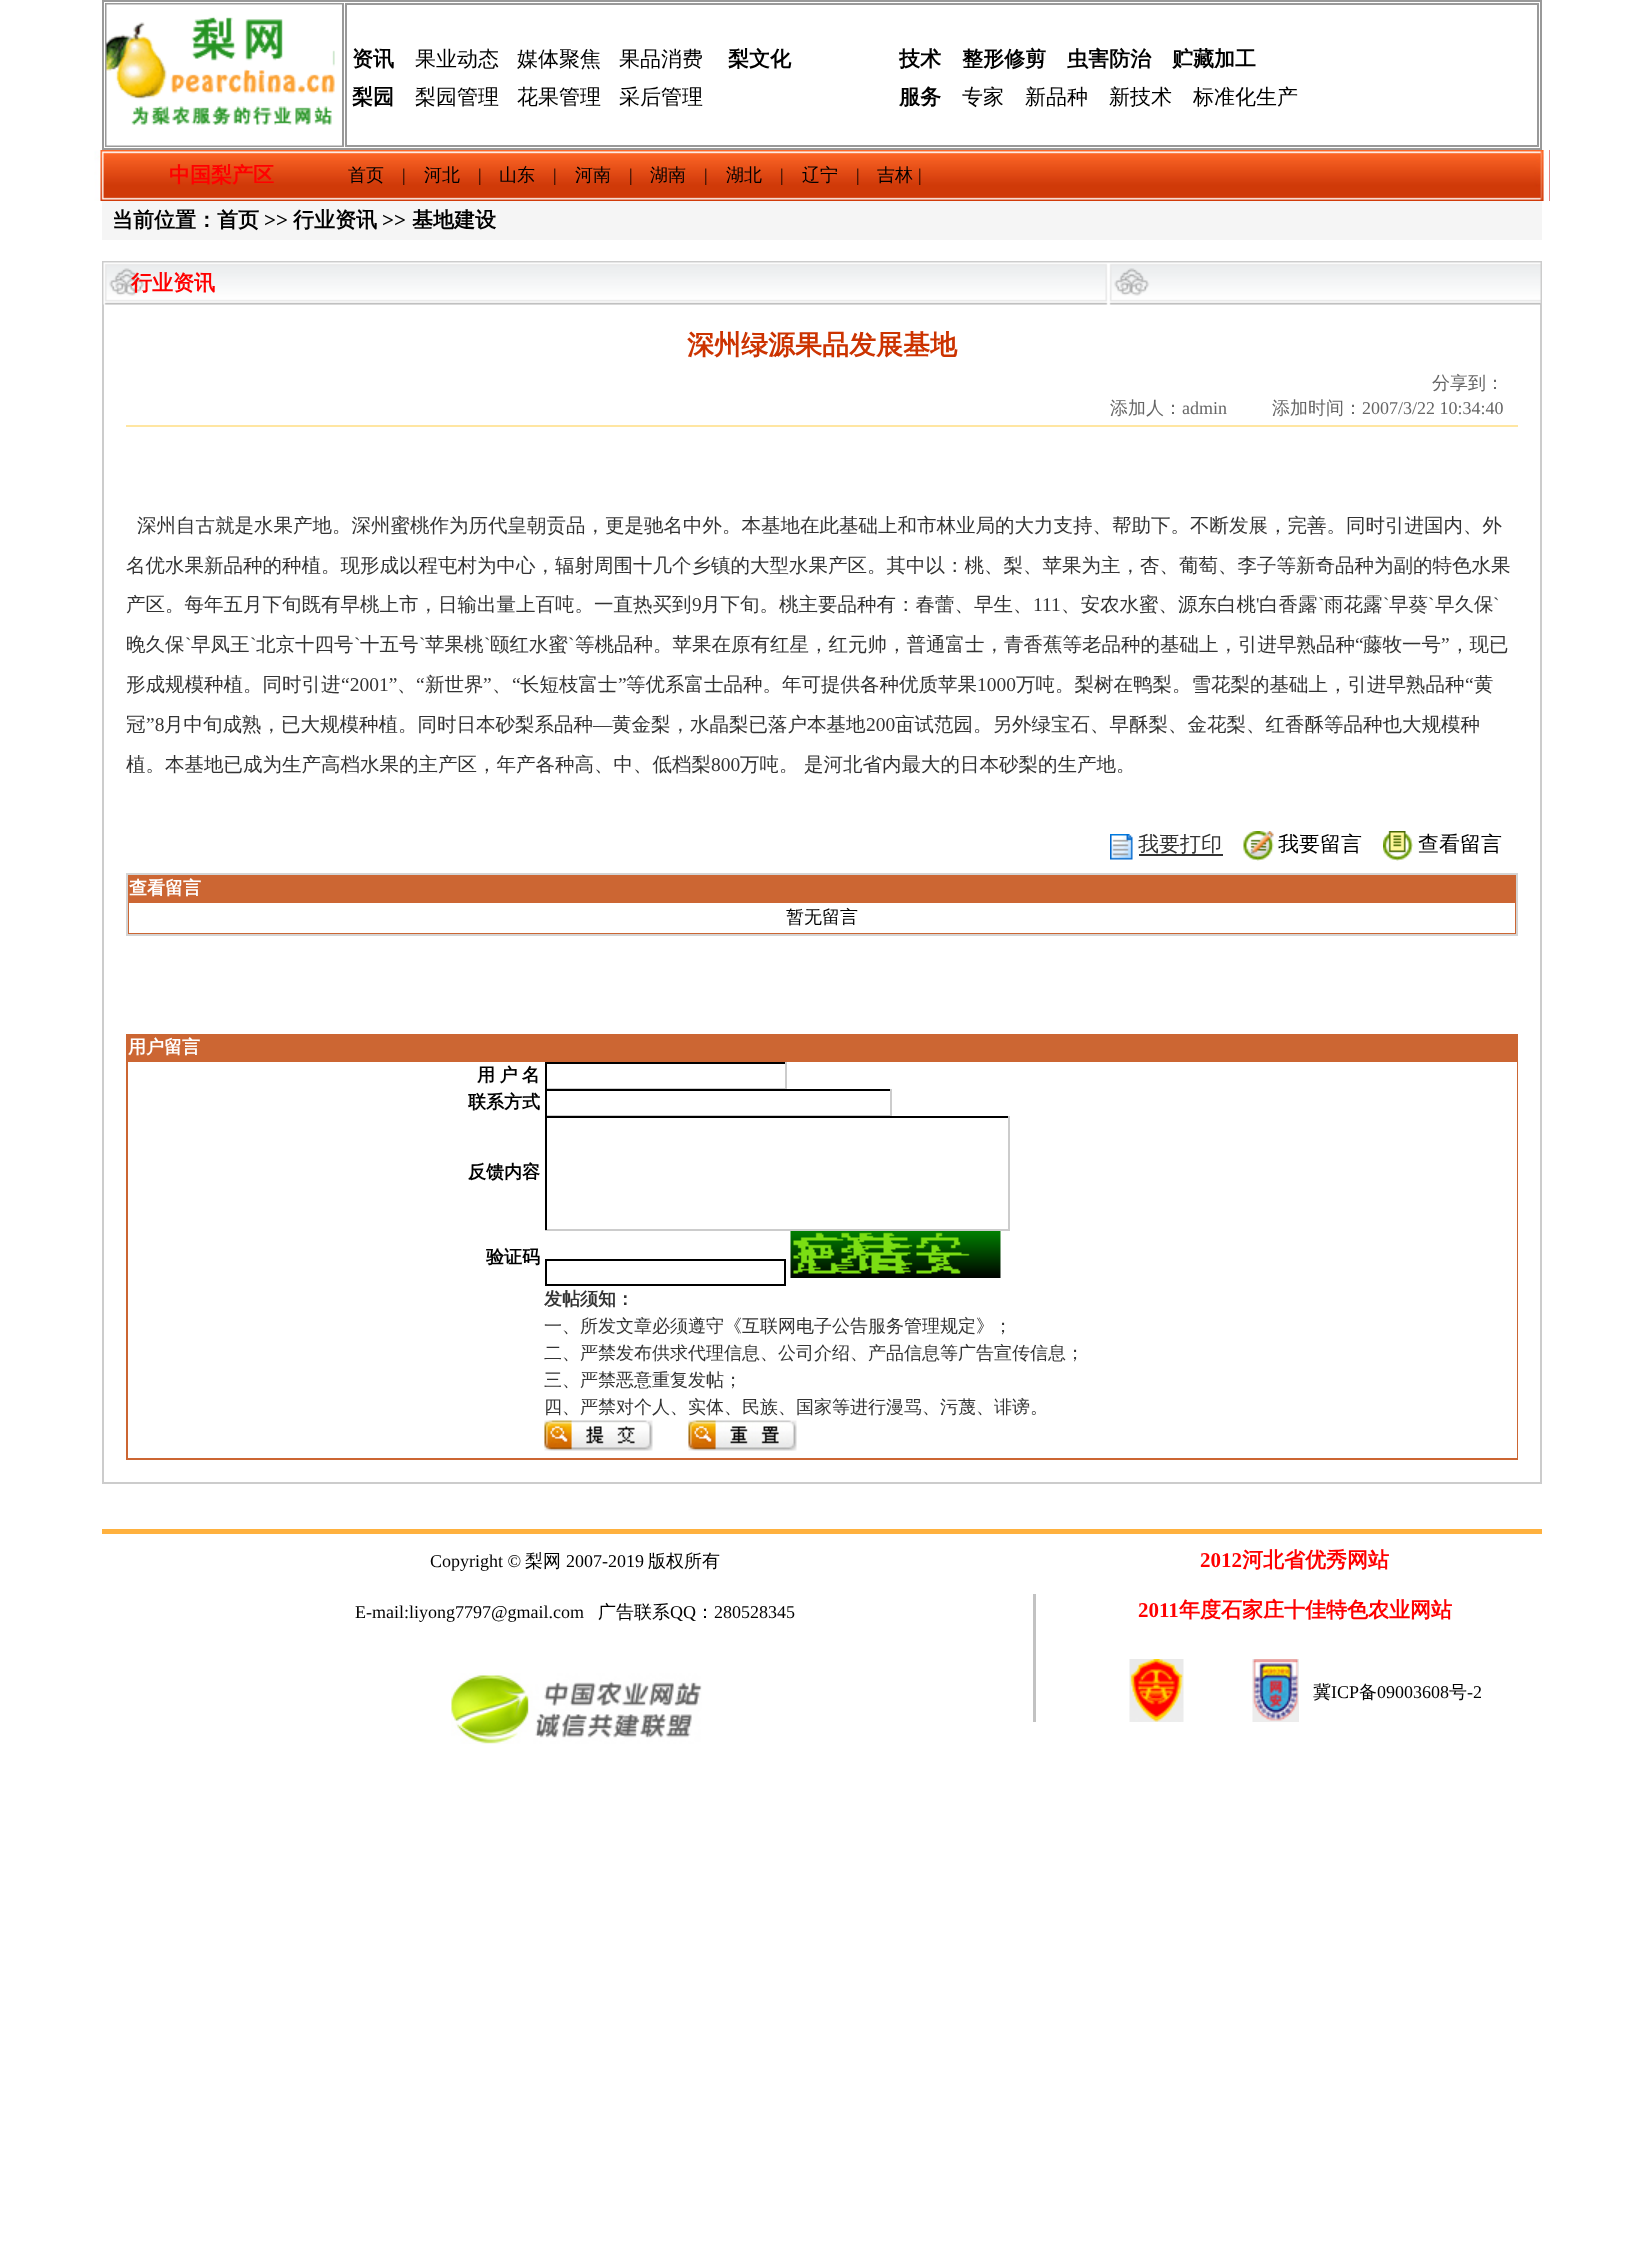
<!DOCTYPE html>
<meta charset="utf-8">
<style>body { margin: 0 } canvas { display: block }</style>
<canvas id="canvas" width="1644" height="2265"></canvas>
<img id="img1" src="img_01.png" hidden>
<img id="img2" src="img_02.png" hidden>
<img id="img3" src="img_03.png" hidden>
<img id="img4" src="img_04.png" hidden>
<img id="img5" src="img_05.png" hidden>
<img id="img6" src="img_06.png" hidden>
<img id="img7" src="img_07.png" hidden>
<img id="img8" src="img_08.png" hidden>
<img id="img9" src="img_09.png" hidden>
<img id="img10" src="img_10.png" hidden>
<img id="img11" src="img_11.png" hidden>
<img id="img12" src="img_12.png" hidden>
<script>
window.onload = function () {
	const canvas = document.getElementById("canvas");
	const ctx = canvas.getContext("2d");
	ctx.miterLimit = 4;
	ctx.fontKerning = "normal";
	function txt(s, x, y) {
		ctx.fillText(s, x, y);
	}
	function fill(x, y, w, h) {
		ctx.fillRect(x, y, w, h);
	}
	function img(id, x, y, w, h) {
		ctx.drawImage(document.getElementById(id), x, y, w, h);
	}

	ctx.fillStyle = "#FFFFFF";
	fill(0, 0, 1644, 2265);
	ctx.strokeStyle = "#999999";
	ctx.lineWidth = 2;
	ctx.strokeRect(103, 1, 1438, 148);
	ctx.strokeRect(106, 4, 237, 142);
	img("img1", 106, 4, 236, 142);
	ctx.strokeRect(346, 4, 1192, 142);
	ctx.fillStyle = "#CA0202";
	fill(1549, 150, 1, 51);
	img("img2", 94, 150, 1456, 51);
	ctx.fillStyle = "#F5F5F5";
	fill(102, 201, 1440, 39);
	ctx.strokeStyle = "#CCCCCC";
	ctx.strokeRect(103, 262, 1438, 1221);
	img("img3", 103, 262, 1438, 43);
	ctx.fillStyle = "#FFE6A2";
	fill(126, 425, 1392, 2);
	img("img4", 1110, 834, 23, 26);
	ctx.fillStyle = "#333333";
	fill(1139, 854, 84, 2);
	img("img5", 1243, 831, 31, 30);
	img("img6", 1383, 831, 30, 30);
	ctx.fillStyle = "#CC6633";
	ctx.beginPath();
	ctx.rect(127, 874, 1390, 61);
	ctx.fill();
	ctx.strokeStyle = "#D4D4D4";
	ctx.stroke();
	ctx.fillStyle = "#FFFFFF";
	fill(129, 903, 1386, 30);
	ctx.fillStyle = "#CC6633";
	fill(126, 1034, 1392, 426);
	ctx.fillStyle = "#FFFFFF";
	fill(128, 1062, 1389, 396);
	ctx.fillStyle = "#000000";
	fill(545, 1062, 241, 2);
	ctx.fillStyle = "#CCCCCC";
	fill(785, 1062, 2, 27);
	fill(545, 1088, 241, 1);
	ctx.fillStyle = "#000000";
	fill(545, 1062, 2, 27);
	fill(545, 1089, 346, 2);
	ctx.fillStyle = "#CCCCCC";
	fill(890, 1089, 2, 27);
	fill(545, 1115, 346, 1);
	ctx.fillStyle = "#000000";
	fill(545, 1089, 2, 27);
	fill(545, 1116, 465, 2);
	ctx.fillStyle = "#CCCCCC";
	fill(1008, 1116, 2, 114);
	fill(545, 1229, 465, 2);
	ctx.fillStyle = "#000000";
	fill(545, 1116, 2, 114);
	ctx.strokeStyle = "#000000";
	ctx.strokeRect(546, 1260, 239, 25);
	img("img7", 790, 1231, 211, 47);
	img("img8", 544, 1420, 109, 31);
	img("img9", 688, 1420, 109, 31);
	ctx.fillStyle = "#FFB13E";
	fill(102, 1529, 1440, 5);
	img("img10", 451, 1673, 251, 71);
	img("img11", 1129, 1659, 55, 63);
	img("img12", 1252, 1659, 47, 63);
	ctx.fillStyle = "#C2C2C2";
	fill(1033, 1594, 3, 128);
	ctx.font = "bold 21px WenQuanYi Zen Hei";
	ctx.fillStyle = "#000000";
	txt("资讯", 352, 66);
	ctx.font = "500 21px WenQuanYi Zen Hei";
	txt("果业动态", 415, 66);
	txt("媒体聚焦", 517, 66);
	txt("果品消费", 619, 66);
	ctx.font = "bold 21px WenQuanYi Zen Hei";
	txt("梨文化", 728, 66);
	txt("技术", 899, 66);
	txt("整形修剪", 962, 66);
	txt("虫害防治", 1067, 66);
	txt("贮藏加工", 1172, 66);
	txt("梨园", 352, 104);
	ctx.font = "500 21px WenQuanYi Zen Hei";
	txt("梨园管理", 415, 104);
	txt("花果管理", 517, 104);
	txt("采后管理", 619, 104);
	ctx.font = "bold 21px WenQuanYi Zen Hei";
	txt("服务", 899, 104);
	ctx.font = "500 21px WenQuanYi Zen Hei";
	txt("专家", 962, 104);
	txt("新品种", 1025, 104);
	txt("新技术", 1109, 104);
	txt("标准化生产", 1193, 104);
	ctx.font = "bold 21px WenQuanYi Zen Hei";
	ctx.fillStyle = "#FF0000";
	txt("中国梨产区", 169, 182);
	ctx.font = "500 18px WenQuanYi Zen Hei";
	ctx.fillStyle = "#000000";
	txt("首页", 348, 181);
	ctx.font = "18px Liberation Serif";
	txt("|", 402, 181);
	ctx.font = "500 18px WenQuanYi Zen Hei";
	txt("河北", 424, 181);
	ctx.font = "18px Liberation Serif";
	txt("|", 478, 181);
	ctx.font = "500 18px WenQuanYi Zen Hei";
	txt("山东", 499, 181);
	ctx.font = "18px Liberation Serif";
	txt("|", 553, 181);
	ctx.font = "500 18px WenQuanYi Zen Hei";
	txt("河南", 575, 181);
	ctx.font = "18px Liberation Serif";
	txt("|", 629, 181);
	ctx.font = "500 18px WenQuanYi Zen Hei";
	txt("湖南", 650, 181);
	ctx.font = "18px Liberation Serif";
	txt("|", 704, 181);
	ctx.font = "500 18px WenQuanYi Zen Hei";
	txt("湖北", 726, 181);
	ctx.font = "18px Liberation Serif";
	txt("|", 780, 181);
	ctx.font = "500 18px WenQuanYi Zen Hei";
	txt("辽宁", 802, 181);
	ctx.font = "18px Liberation Serif";
	txt("|", 856, 181);
	ctx.font = "500 18px WenQuanYi Zen Hei";
	txt("吉林", 877, 181);
	ctx.font = "18px Liberation Serif";
	txt("|", 918, 181);
	ctx.font = "bold 21px WenQuanYi Zen Hei";
	txt("当前位置：首页", 112, 227);
	ctx.font = "bold 21px Liberation Serif";
	txt(">>", 264, 227);
	ctx.font = "bold 21px WenQuanYi Zen Hei";
	txt("行业资讯", 293, 227);
	ctx.font = "bold 21px Liberation Serif";
	txt(">>", 382, 227);
	ctx.font = "bold 21px WenQuanYi Zen Hei";
	txt("基地建设", 412, 227);
	ctx.fillStyle = "#FF0000";
	txt("行业资讯", 131, 290);
	ctx.font = "bold 27px WenQuanYi Zen Hei";
	ctx.fillStyle = "#CC3300";
	txt("深州绿源果品发展基地", 687, 354);
	ctx.font = "500 18px WenQuanYi Zen Hei";
	ctx.fillStyle = "#666666";
	txt("分享到：", 1432, 389);
	txt("添加人：", 1110, 414);
	ctx.font = "18px Liberation Serif";
	txt("admin", 1182, 414);
	ctx.font = "500 18px WenQuanYi Zen Hei";
	txt("添加时间：", 1272, 414);
	ctx.font = "18px Liberation Serif";
	txt("2007/3/22 10:34:40", 1362, 414);
	ctx.font = "500 19.5px WenQuanYi Zen Hei";
	ctx.fillStyle = "#333333";
	txt("深州自古就是水果产地。深州蜜桃作为历代皇朝贡品，更是驰名中外。本基地在此基础上和市林业局的大力支持、帮助下。不断发展，完善。同时引进国内、外", 137, 532);
	txt("名优水果新品种的种植。现形成以程屯村为中心，辐射周围十几个乡镇的大型水果产区。其中以：桃、梨、苹果为主，杏、葡萄、李子等新奇品种为副的特色水果", 126, 572);
	txt("产区。每年五月下旬既有早桃上市，日输出量上百吨。一直热买到", 126, 611);
	ctx.font = "19.5px Liberation Serif";
	txt("9", 692, 611);
	ctx.font = "500 19.5px WenQuanYi Zen Hei";
	txt("月下旬。桃主要品种有：春蕾、早生、", 701, 611);
	ctx.font = "19.5px Liberation Serif";
	txt("111", 1033, 611);
	ctx.font = "500 19.5px WenQuanYi Zen Hei";
	txt("、安农水蜜、源东白桃", 1061, 611);
	ctx.font = "19.5px Liberation Serif";
	txt("'", 1256, 611);
	ctx.font = "500 19.5px WenQuanYi Zen Hei";
	txt("白香露", 1259, 611);
	ctx.font = "19.5px Liberation Serif";
	txt("`", 1318, 611);
	ctx.font = "500 19.5px WenQuanYi Zen Hei";
	txt("雨花露", 1324, 611);
	ctx.font = "19.5px Liberation Serif";
	txt("`", 1383, 611);
	ctx.font = "500 19.5px WenQuanYi Zen Hei";
	txt("早葵", 1389, 611);
	ctx.font = "19.5px Liberation Serif";
	txt("`", 1428, 611);
	ctx.font = "500 19.5px WenQuanYi Zen Hei";
	txt("早久保", 1435, 611);
	ctx.font = "19.5px Liberation Serif";
	txt("`", 1493, 611);
	ctx.font = "500 19.5px WenQuanYi Zen Hei";
	txt("晚久保", 126, 651);
	ctx.font = "19.5px Liberation Serif";
	txt("`", 185, 651);
	ctx.font = "500 19.5px WenQuanYi Zen Hei";
	txt("早凤王", 191, 651);
	ctx.font = "19.5px Liberation Serif";
	txt("`", 250, 651);
	ctx.font = "500 19.5px WenQuanYi Zen Hei";
	txt("北京十四号", 256, 651);
	ctx.font = "19.5px Liberation Serif";
	txt("`", 354, 651);
	ctx.font = "500 19.5px WenQuanYi Zen Hei";
	txt("十五号", 360, 651);
	ctx.font = "19.5px Liberation Serif";
	txt("`", 419, 651);
	ctx.font = "500 19.5px WenQuanYi Zen Hei";
	txt("苹果桃", 425, 651);
	ctx.font = "19.5px Liberation Serif";
	txt("`", 484, 651);
	ctx.font = "500 19.5px WenQuanYi Zen Hei";
	txt("颐红水蜜", 490, 651);
	ctx.font = "19.5px Liberation Serif";
	txt("`", 568, 651);
	ctx.font = "500 19.5px WenQuanYi Zen Hei";
	txt("等桃品种。苹果在原有红星，红元帅，普通富士，青香蕉等老品种的基础上，引进早熟品种", 575, 651);
	ctx.font = "19.5px Liberation Serif";
	txt("“", 1355, 651);
	ctx.font = "500 19.5px WenQuanYi Zen Hei";
	txt("藤牧一号", 1363, 651);
	ctx.font = "19.5px Liberation Serif";
	txt("”", 1441, 651);
	ctx.font = "500 19.5px WenQuanYi Zen Hei";
	txt("，现已", 1450, 651);
	txt("形成规模种植。同时引进", 126, 691);
	ctx.font = "19.5px Liberation Serif";
	txt("“2001”", 341, 691);
	txt("“", 416, 691);
	ctx.font = "500 19.5px WenQuanYi Zen Hei";
	txt("新世界", 425, 691);
	ctx.font = "19.5px Liberation Serif";
	txt("”", 483, 691);
	txt("“", 512, 691);
	ctx.font = "500 19.5px WenQuanYi Zen Hei";
	txt("长短枝富士", 520, 691);
	ctx.font = "19.5px Liberation Serif";
	txt("”", 618, 691);
	ctx.font = "500 19.5px WenQuanYi Zen Hei";
	txt("等优系富士品种。年可提供各种优质苹果", 626, 691);
	ctx.font = "19.5px Liberation Serif";
	txt("1000", 977, 691);
	ctx.font = "500 19.5px WenQuanYi Zen Hei";
	txt("万吨。梨树在鸭梨。雪花梨的基础上，引进早熟品种", 1016, 691);
	ctx.font = "19.5px Liberation Serif";
	txt("“", 1465, 691);
	ctx.font = "500 19.5px WenQuanYi Zen Hei";
	txt("黄", 1474, 691);
	txt("、", 397, 691);
	txt("、", 492, 691);
	txt("冠", 126, 731);
	ctx.font = "19.5px Liberation Serif";
	txt("”8", 146, 731);
	ctx.font = "500 19.5px WenQuanYi Zen Hei";
	txt("月中旬成熟，已大规模种植。同时日本砂梨系品种", 164, 731);
	ctx.font = "19.5px Liberation Serif";
	txt("—", 593, 731);
	ctx.font = "500 19.5px WenQuanYi Zen Hei";
	txt("黄金梨，水晶梨已落户本基地", 612, 731);
	ctx.font = "19.5px Liberation Serif";
	txt("200", 866, 731);
	ctx.font = "500 19.5px WenQuanYi Zen Hei";
	txt("亩试范园。另外绿宝石、早酥梨、金花梨、红香酥等品种也大规模种", 895, 731);
	txt("植。本基地已成为生产高档水果的主产区，年产各种高、中、低档梨", 126, 771);
	ctx.font = "19.5px Liberation Serif";
	txt("800", 711, 771);
	ctx.font = "500 19.5px WenQuanYi Zen Hei";
	txt("万吨。", 740, 771);
	txt("是河北省内最大的日本砂梨的生产地。", 804, 771);
	ctx.font = "500 21px WenQuanYi Zen Hei";
	txt("我要打印", 1138, 851);
	ctx.fillStyle = "#000000";
	txt("我要留言", 1278, 851);
	txt("查看留言", 1418, 851);
	ctx.font = "bold 18px WenQuanYi Zen Hei";
	ctx.fillStyle = "#FFFFFF";
	txt("查看留言", 129, 894);
	ctx.font = "500 18px WenQuanYi Zen Hei";
	ctx.fillStyle = "#000000";
	txt("暂无留言", 786, 923);
	ctx.font = "bold 18px WenQuanYi Zen Hei";
	ctx.fillStyle = "#FFFFFF";
	txt("用户留言", 128, 1053);
	ctx.wordSpacing = "-1px";
	ctx.fillStyle = "#000000";
	txt("用 户 名", 477, 1081);
	ctx.wordSpacing = "0px";
	txt("联系方式", 468, 1108);
	txt("反馈内容", 468, 1178);
	txt("验证码", 486, 1263);
	ctx.fillStyle = "#333333";
	txt("发帖须知：", 544, 1305);
	ctx.font = "500 18px WenQuanYi Zen Hei";
	txt("一、所发文章必须遵守《互联网电子公告服务管理规定》；", 544, 1332);
	txt("二、严禁发布供求代理信息、公司介绍、产品信息等广告宣传信息；", 544, 1359);
	txt("三、严禁恶意重复发帖；", 544, 1386);
	txt("四、严禁对个人、实体、民族、国家等进行漫骂、污蔑、诽谤。", 544, 1413);
	ctx.font = "18px Liberation Serif";
	ctx.fillStyle = "#000000";
	txt("Copyright ©", 430, 1567);
	ctx.font = "500 18px WenQuanYi Zen Hei";
	txt("梨网", 525, 1567);
	ctx.font = "18px Liberation Serif";
	txt("2007-2019", 566, 1567);
	ctx.font = "500 18px WenQuanYi Zen Hei";
	txt("版权所有", 648, 1567);
	ctx.font = "18px Liberation Serif";
	txt("E-mail:liyong7797@gmail.com", 355, 1618);
	ctx.font = "500 18px WenQuanYi Zen Hei";
	txt("广告联系", 598, 1618);
	ctx.font = "18px Liberation Serif";
	txt("QQ", 670, 1618);
	ctx.font = "500 18px WenQuanYi Zen Hei";
	txt("：", 696, 1618);
	ctx.font = "18px Liberation Serif";
	txt("280528345", 714, 1618);
	ctx.font = "bold 21px Liberation Serif";
	ctx.fillStyle = "#FF0000";
	txt("2012", 1200, 1567);
	ctx.font = "bold 21px WenQuanYi Zen Hei";
	txt("河北省优秀网站", 1242, 1567);
	ctx.font = "bold 21px Liberation Serif";
	txt("2011", 1138, 1617);
	ctx.font = "bold 21px WenQuanYi Zen Hei";
	txt("年度石家庄十佳特色农业网站", 1179, 1617);
	ctx.font = "500 18px WenQuanYi Zen Hei";
	ctx.fillStyle = "#000000";
	txt("冀", 1313, 1698);
	ctx.font = "18px Liberation Serif";
	txt("ICP", 1331, 1698);
	ctx.font = "500 18px WenQuanYi Zen Hei";
	txt("备", 1359, 1698);
	ctx.font = "18px Liberation Serif";
	txt("09003608", 1377, 1698);
	ctx.font = "500 18px WenQuanYi Zen Hei";
	txt("号", 1449, 1698);
	ctx.font = "18px Liberation Serif";
	txt("-2", 1467, 1698);
};
</script>
